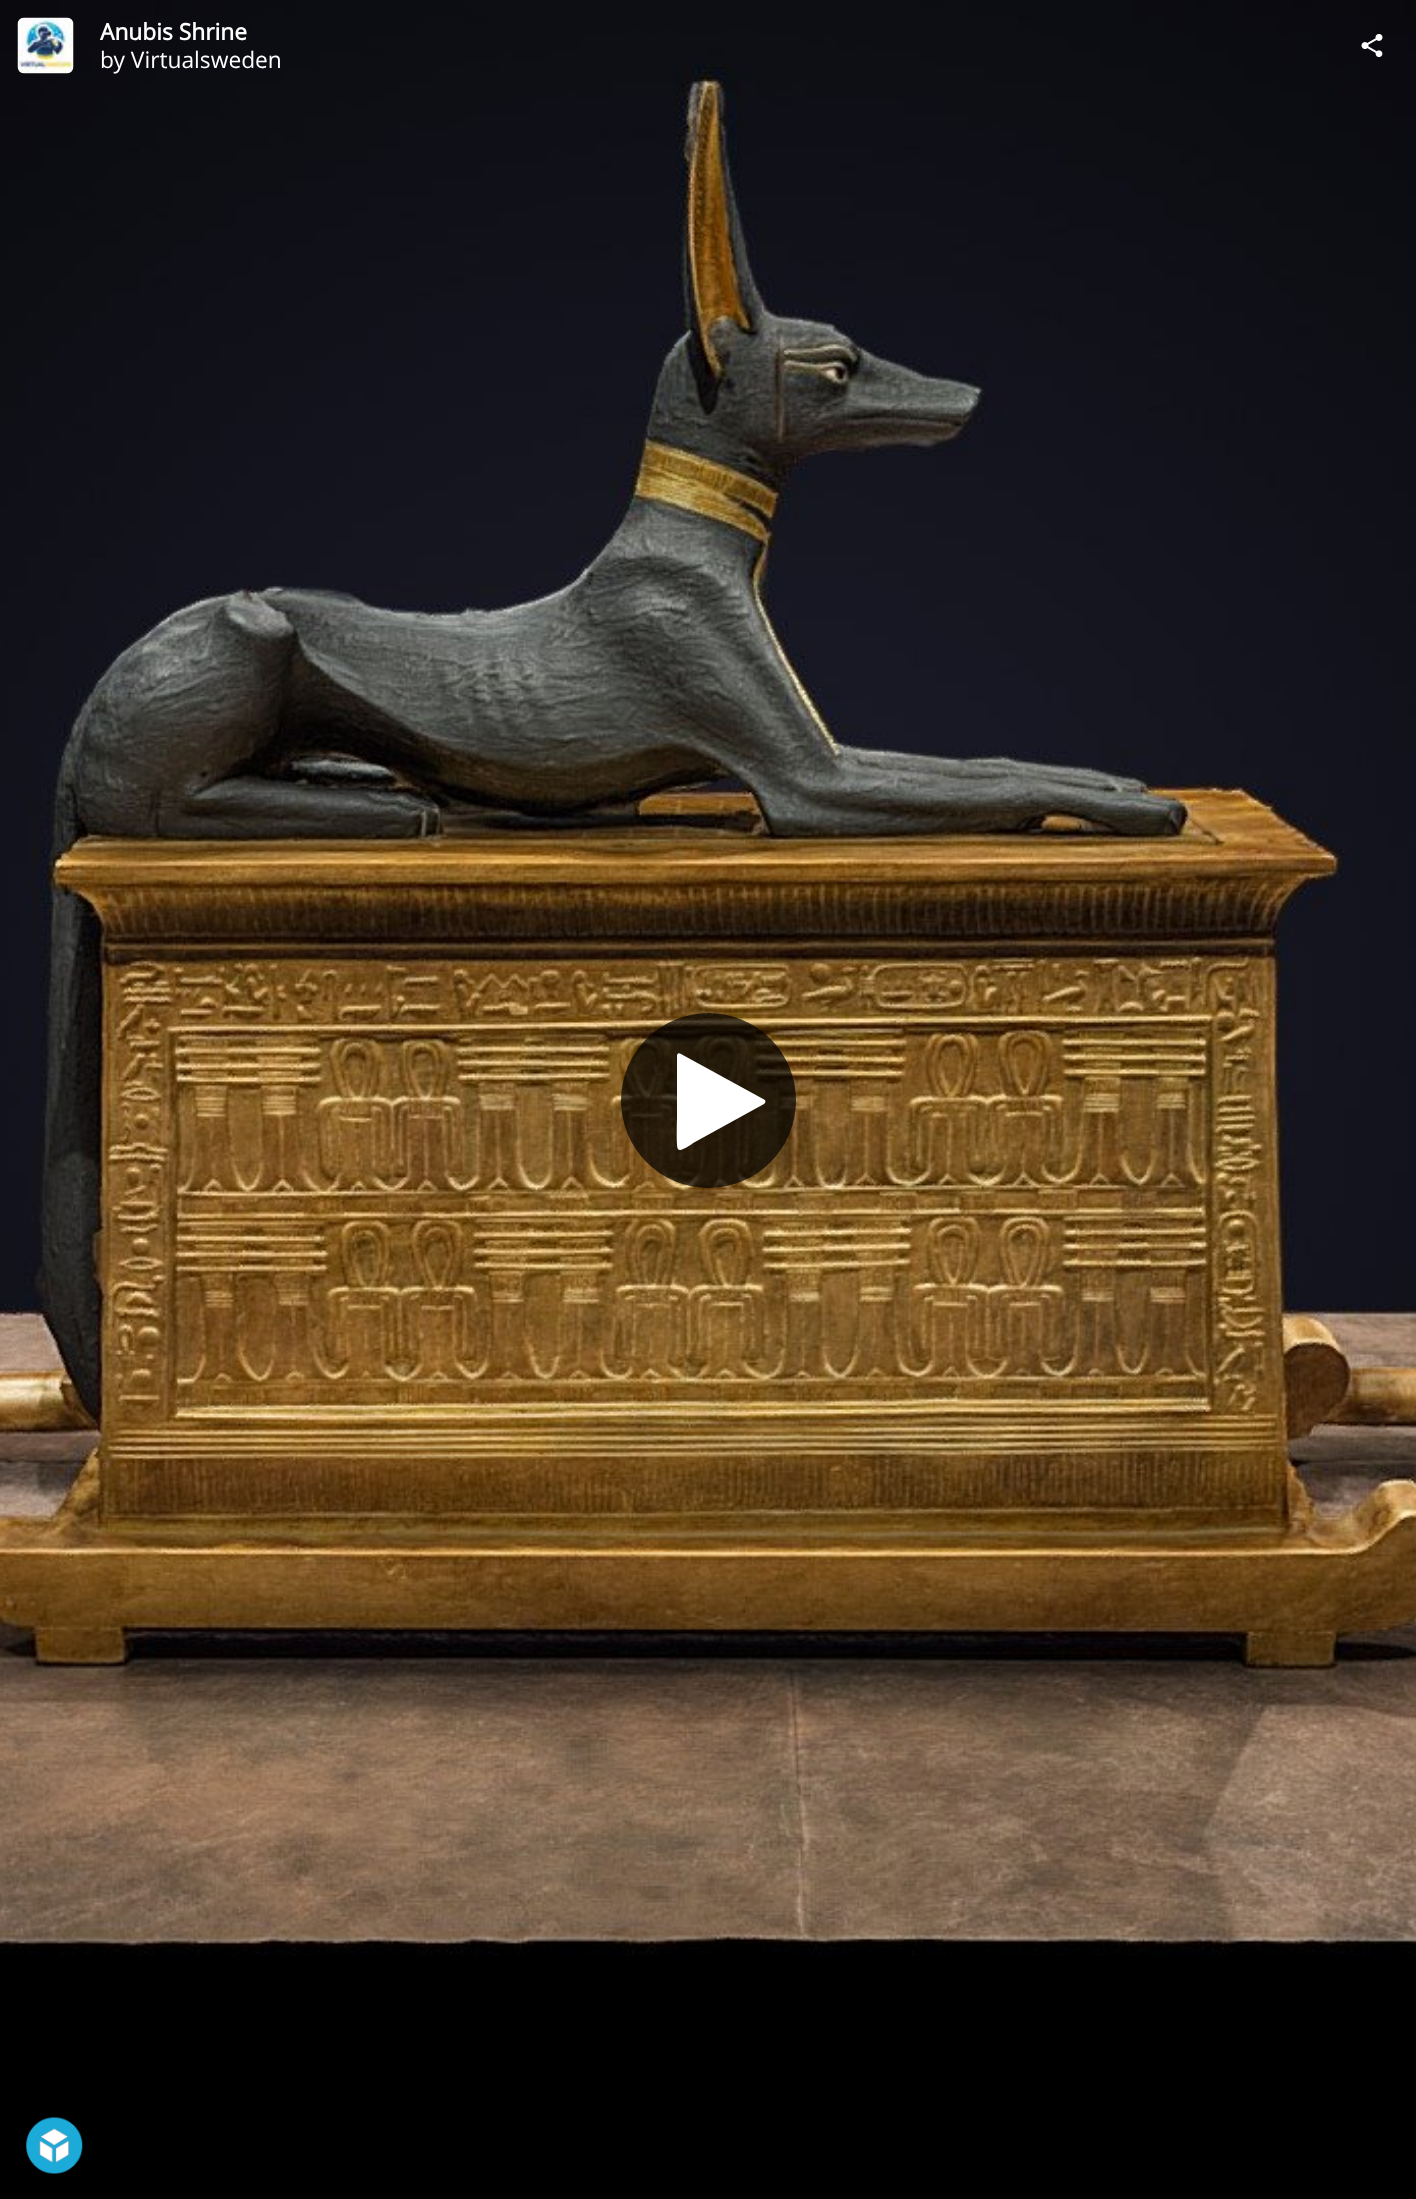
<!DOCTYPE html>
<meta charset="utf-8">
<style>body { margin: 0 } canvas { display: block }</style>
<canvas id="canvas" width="1416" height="2199"></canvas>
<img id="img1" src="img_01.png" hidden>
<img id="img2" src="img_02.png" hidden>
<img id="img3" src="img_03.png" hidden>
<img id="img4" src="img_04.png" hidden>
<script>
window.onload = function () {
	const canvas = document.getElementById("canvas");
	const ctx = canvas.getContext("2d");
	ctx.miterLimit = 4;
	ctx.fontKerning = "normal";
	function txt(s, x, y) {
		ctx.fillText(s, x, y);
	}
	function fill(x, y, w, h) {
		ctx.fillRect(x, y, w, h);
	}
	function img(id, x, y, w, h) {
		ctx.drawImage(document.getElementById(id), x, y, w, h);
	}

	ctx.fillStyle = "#FFFFFF";
	fill(0, 0, 1416, 2199);
	img("img1", 0, 0, 1416, 2199);
	ctx.fillStyle = "rgba(0, 0, 0, 0.7)";
	ctx.beginPath();
	ctx.arc(708.5, 1100.5, 87.5, 0, Math.PI * 2);
	ctx.fill();
	ctx.fillStyle = "#FFFFFF";
	ctx.beginPath();
	ctx.moveTo(764, 1104);
	ctx.lineTo(695, 1142);
	ctx.bezierCurveTo(693, 1143, 680, 1153, 678, 1149);
	ctx.bezierCurveTo(676, 1147, 677, 1120, 677, 1117);
	ctx.lineTo(677, 1055);
	ctx.bezierCurveTo(678, 1053, 679, 1053, 681, 1054);
	ctx.lineTo(765, 1100);
	ctx.bezierCurveTo(766, 1102, 765, 1103, 764, 1104);
	ctx.closePath();
	ctx.fill();
	img("img2", 26, 2117, 57, 57);
	img("img3", 17, 17, 57, 57);
	img("img4", 1361, 34, 22, 24);
	ctx.font = "bold 22.75px Open Sans";
	txt("Anubis Shrine", 100, 40);
	ctx.font = "22.75px Open Sans";
	txt("by Virtualsweden", 100, 68);
};
</script>
